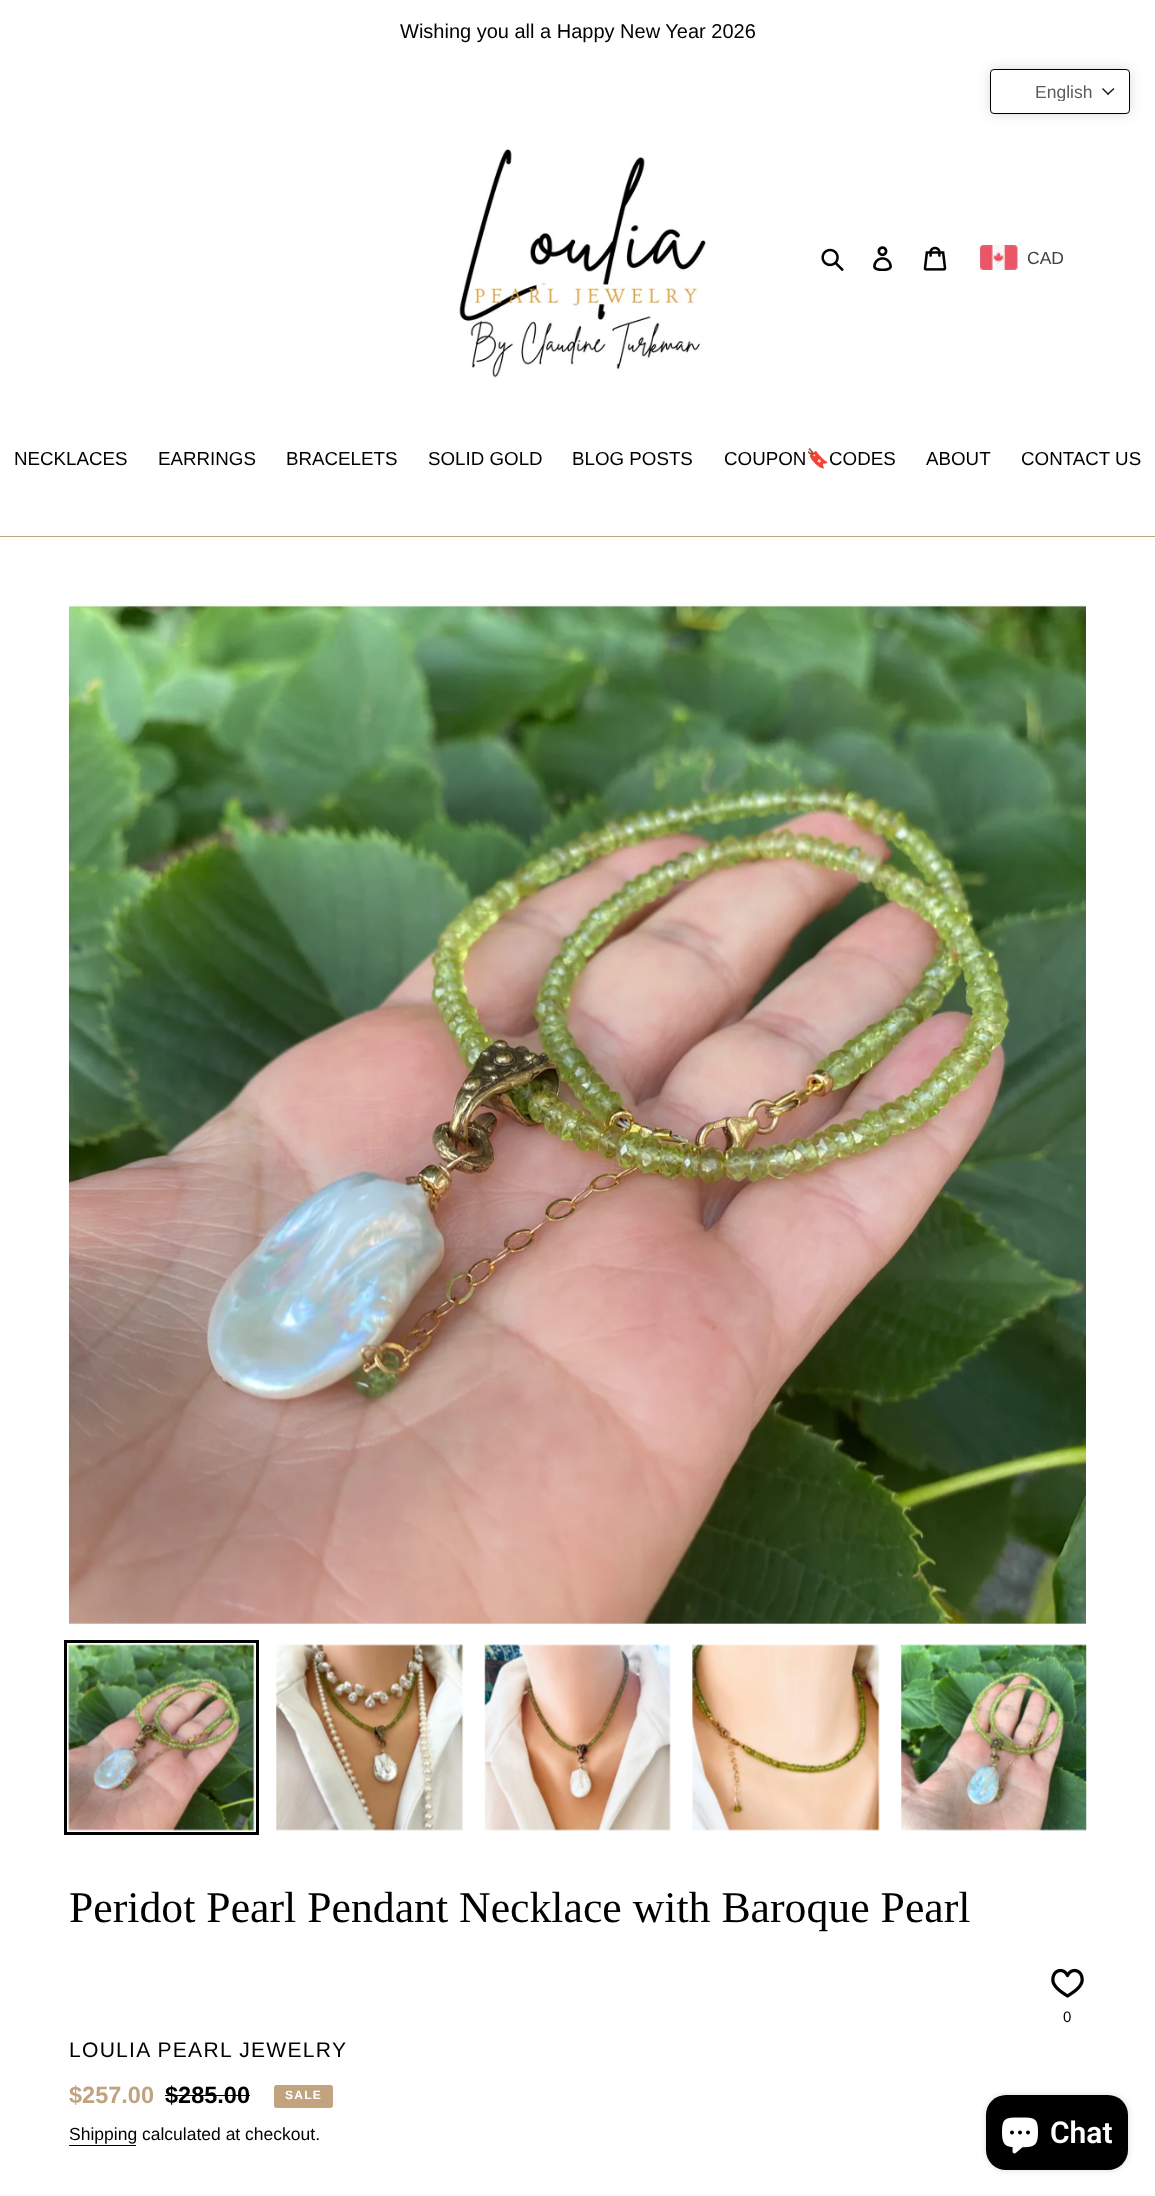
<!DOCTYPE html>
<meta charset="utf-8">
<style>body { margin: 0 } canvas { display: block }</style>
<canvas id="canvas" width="1155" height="2196"></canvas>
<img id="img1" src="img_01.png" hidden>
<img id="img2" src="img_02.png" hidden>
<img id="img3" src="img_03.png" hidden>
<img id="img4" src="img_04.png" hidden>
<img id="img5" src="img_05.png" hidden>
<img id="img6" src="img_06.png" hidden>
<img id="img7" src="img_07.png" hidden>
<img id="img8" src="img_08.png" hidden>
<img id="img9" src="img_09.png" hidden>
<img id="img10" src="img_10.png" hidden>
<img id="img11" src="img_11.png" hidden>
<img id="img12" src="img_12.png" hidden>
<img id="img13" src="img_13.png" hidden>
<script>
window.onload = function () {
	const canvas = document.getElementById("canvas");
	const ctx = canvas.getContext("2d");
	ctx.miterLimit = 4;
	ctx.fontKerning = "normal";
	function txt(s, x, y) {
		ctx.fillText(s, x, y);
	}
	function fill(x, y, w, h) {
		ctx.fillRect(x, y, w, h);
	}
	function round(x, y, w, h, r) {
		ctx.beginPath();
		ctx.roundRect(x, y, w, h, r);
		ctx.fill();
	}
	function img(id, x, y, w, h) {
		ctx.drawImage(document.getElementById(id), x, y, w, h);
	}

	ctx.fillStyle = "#FFFFFF";
	fill(0, 0, 1155, 2196);
	img("img1", 459, 149, 247, 230);
	img("img2", 821, 248, 23, 23);
	img("img3", 873, 246, 19, 25);
	img("img4", 923, 246, 24, 25);
	img("img5", 980, 245, 38, 25);
	ctx.fillStyle = "#C1A37F";
	fill(0, 536, 1155, 1);
	ctx.fillStyle = "rgba(0, 0, 0, 0.15)";
	ctx.filter = "blur(6px)";
	ctx.beginPath();
	ctx.roundRect(990, 69, 140, 45, 4);
	ctx.fill();
	ctx.filter = "none";
	ctx.fillStyle = "#FFFFFF";
	ctx.beginPath();
	ctx.roundRect(990.5, 69.5, 139, 44, 3.5);
	ctx.fill();
	ctx.strokeStyle = "#000000";
	ctx.stroke();
	ctx.fillStyle = "#1A1A1A";
	ctx.beginPath();
	ctx.moveTo(1113.5, 88);
	ctx.lineTo(1114.5, 89);
	ctx.lineTo(1108, 95);
	ctx.lineTo(1107, 94);
	ctx.closePath();
	ctx.fill();
	ctx.beginPath();
	ctx.moveTo(1103, 88);
	ctx.lineTo(1109, 94);
	ctx.lineTo(1108, 95);
	ctx.lineTo(1102, 89);
	ctx.closePath();
	ctx.fill();
	img("img6", 69, 605, 1017, 1019);
	ctx.lineWidth = 3;
	ctx.strokeRect(65.5, 1641.5, 192, 192);
	img("img7", 68, 1644, 187, 187);
	img("img8", 276, 1644, 188, 187);
	img("img9", 484, 1644, 187, 187);
	img("img10", 692, 1644, 188, 187);
	img("img11", 901, 1644, 186, 187);
	img("img12", 1051, 1968, 33, 30);
	ctx.fillStyle = "#000000";
	fill(165, 2095, 85, 1);
	ctx.fillStyle = "#C1A37F";
	ctx.beginPath();
	ctx.roundRect(274.5, 2085.5, 58, 22, 2);
	ctx.fill();
	ctx.strokeStyle = "#C1A37F";
	ctx.lineWidth = 1;
	ctx.stroke();
	ctx.fillStyle = "#000000";
	fill(69, 2145, 67, 1);
	ctx.fillStyle = "rgba(0, 0, 0, 0.15)";
	ctx.filter = "blur(3px)";
	ctx.beginPath();
	ctx.roundRect(986, 2095, 142, 75, 20);
	ctx.fill();
	ctx.filter = "none";
	ctx.fillStyle = "#000000";
	round(986, 2095, 142, 75, 20);
	img("img13", 1002, 2117, 36, 37);
	ctx.font = "20px Liberation Sans";
	txt("Wishing you all a Happy New Year 2026", 400, 38);
	ctx.font = "17.5px Liberation Sans";
	ctx.fillStyle = "#403F3F";
	txt("CAD", 1027, 264);
	ctx.font = "18.75px Liberation Sans";
	ctx.fillStyle = "#000000";
	txt("NECKLACES", 14, 465);
	txt("EARRINGS", 158, 465);
	txt("BRACELETS", 286, 465);
	txt("SOLID GOLD", 428, 465);
	txt("BLOG POSTS", 572, 465);
	txt("COUPON", 724, 465);
	ctx.font = "18.75px Noto Color Emoji";
	txt("🔖", 806, 465);
	ctx.font = "18.75px Liberation Sans";
	txt("CODES", 829, 465);
	txt("ABOUT", 926, 465);
	txt("CONTACT US", 1021, 465);
	ctx.save();
	ctx.beginPath();
	ctx.rect(1035, 81, 58, 20);
	ctx.clip();
	ctx.font = "17.5px Liberation Sans";
	ctx.fillStyle = "#5C5C5C";
	txt("English", 1035, 98);
	ctx.restore();
	ctx.font = "43.75px Liberation Serif";
	txt("Peridot Pearl Pendant Necklace with Baroque Pearl", 69, 1922);
	ctx.font = "15px Liberation Sans";
	txt("0", 1063, 2022);
	ctx.letterSpacing = "1.25px";
	ctx.font = "21.1px Liberation Sans";
	txt("LOULIA PEARL JEWELRY", 69, 2057);
	ctx.letterSpacing = "0px";
	ctx.font = "bold 23.5px Liberation Sans";
	ctx.fillStyle = "#C1A37F";
	txt("$257.00", 69, 2103);
	ctx.fillStyle = "#000000";
	txt("$285.00", 165, 2103);
	ctx.letterSpacing = "1.25px";
	ctx.font = "bold 12px Liberation Sans";
	ctx.fillStyle = "#FFFFFF";
	txt("SALE", 285, 2099);
	ctx.letterSpacing = "0px";
	ctx.font = "17.5px Liberation Sans";
	ctx.fillStyle = "#000000";
	txt("Shipping calculated at checkout.", 69, 2140);
	ctx.font = "600 30px Roboto";
	ctx.fillStyle = "#FFFFFF";
	txt("Chat", 1050, 2143);
};
</script>
